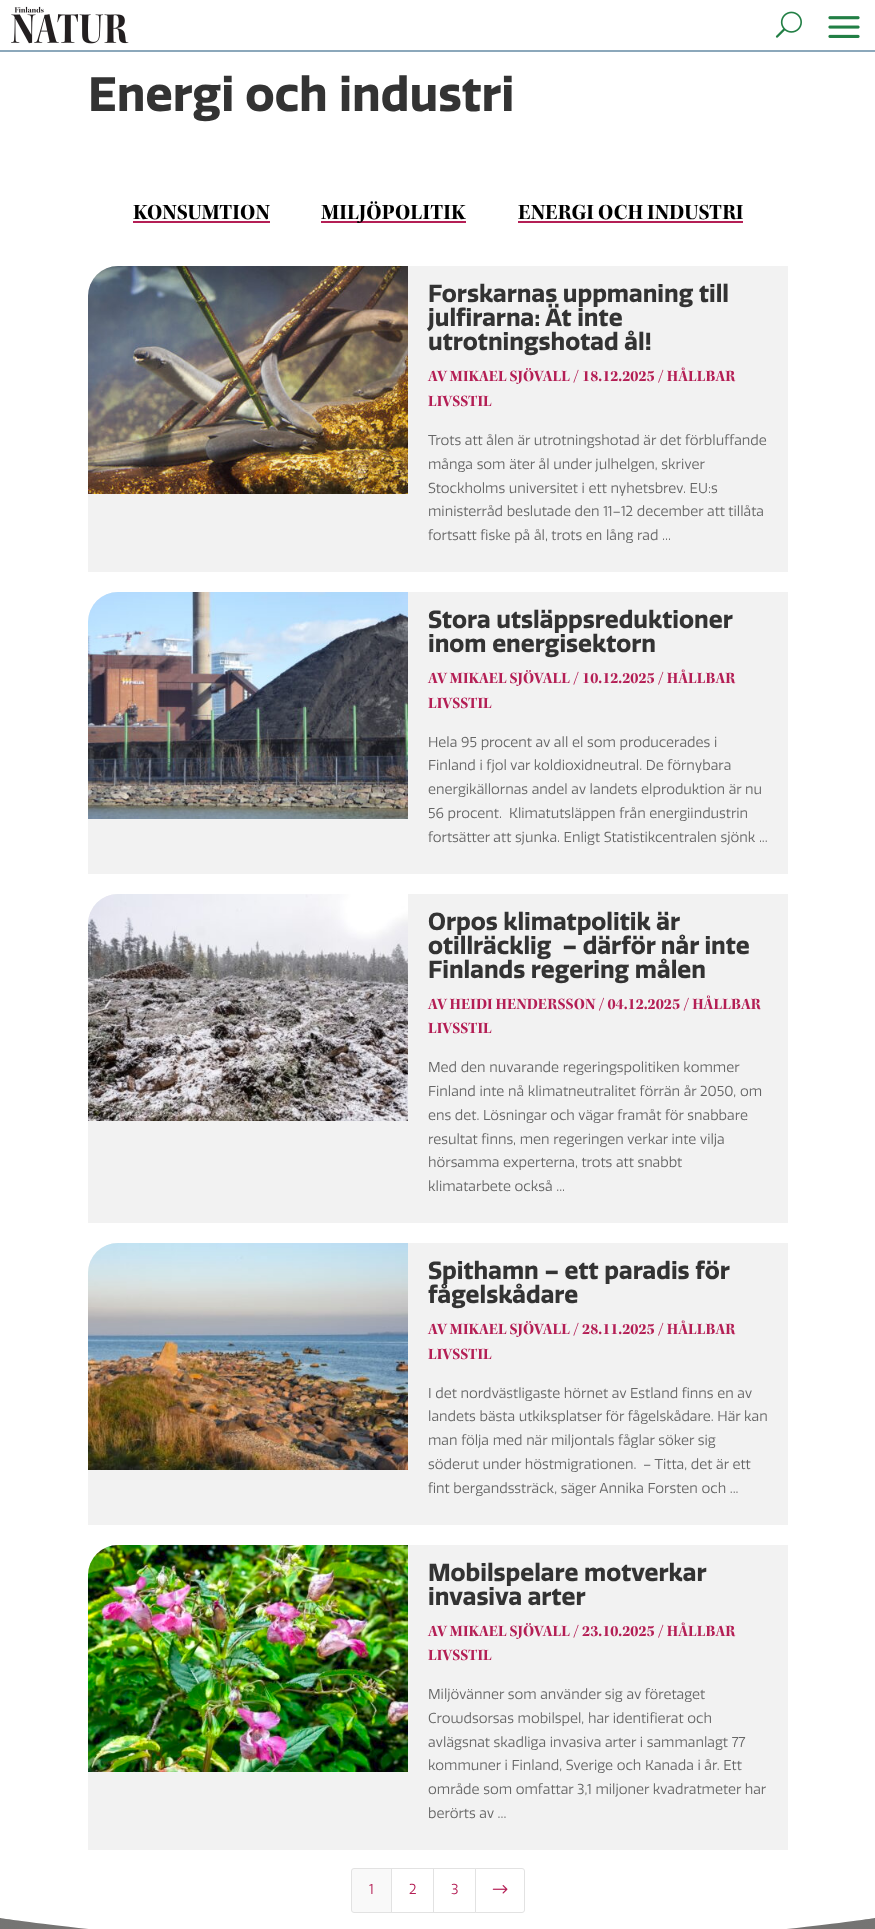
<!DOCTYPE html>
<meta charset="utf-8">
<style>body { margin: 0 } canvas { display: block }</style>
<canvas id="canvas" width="875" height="1929"></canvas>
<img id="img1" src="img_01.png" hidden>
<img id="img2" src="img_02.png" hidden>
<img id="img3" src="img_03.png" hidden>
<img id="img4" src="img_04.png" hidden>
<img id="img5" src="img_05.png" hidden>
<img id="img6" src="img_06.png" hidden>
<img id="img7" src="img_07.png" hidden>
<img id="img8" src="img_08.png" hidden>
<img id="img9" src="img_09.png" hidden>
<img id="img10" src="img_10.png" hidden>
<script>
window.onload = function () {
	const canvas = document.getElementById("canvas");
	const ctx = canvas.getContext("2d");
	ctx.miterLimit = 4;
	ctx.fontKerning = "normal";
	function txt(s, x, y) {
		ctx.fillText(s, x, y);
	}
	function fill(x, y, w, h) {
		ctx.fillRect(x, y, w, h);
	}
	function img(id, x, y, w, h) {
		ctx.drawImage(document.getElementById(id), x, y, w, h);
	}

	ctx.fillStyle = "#FFFFFF";
	fill(0, 0, 875, 1929);
	ctx.fillStyle = "#8CA8BB";
	fill(0, 50, 875, 2);
	img("img1", 11, 6, 118, 38);
	img("img2", 775, 11, 27, 27);
	img("img3", 828, 16, 32, 22);
	ctx.fillStyle = "#B41F55";
	fill(133, 221, 137, 2);
	fill(321, 221, 145, 2);
	fill(518, 221, 225, 2);
	ctx.fillStyle = "#F2F2F2";
	ctx.beginPath();
	ctx.roundRect(88, 266, 700, 306, [30, 0, 0, 0]);
	ctx.fill();
	img("img4", 88, 266, 320, 228);
	ctx.beginPath();
	ctx.roundRect(88, 592, 700, 282, [30, 0, 0, 0]);
	ctx.fill();
	img("img5", 88, 592, 320, 227);
	ctx.beginPath();
	ctx.roundRect(88, 894, 700, 329, [30, 0, 0, 0]);
	ctx.fill();
	img("img6", 88, 894, 320, 227);
	ctx.beginPath();
	ctx.roundRect(88, 1243, 700, 282, [30, 0, 0, 0]);
	ctx.fill();
	img("img7", 88, 1243, 320, 227);
	ctx.beginPath();
	ctx.roundRect(88, 1545, 700, 305, [30, 0, 0, 0]);
	ctx.fill();
	img("img8", 88, 1545, 320, 227);
	ctx.fillStyle = "#F9F9F9";
	ctx.beginPath();
	ctx.roundRect(351.5, 1868.5, 40, 44, [2.5, 0, 0, 2.5]);
	ctx.fill();
	ctx.strokeStyle = "#E2E2E2";
	ctx.stroke();
	ctx.strokeRect(391.5, 1868.5, 42, 44);
	ctx.strokeRect(433.5, 1868.5, 42, 44);
	ctx.fillStyle = "#FFFFFF";
	ctx.beginPath();
	ctx.roundRect(475.5, 1868.5, 49, 44, [0, 2.5, 2.5, 0]);
	ctx.fill();
	ctx.stroke();
	img("img9", 492, 1885, 16, 9);
	img("img10", 0, 1918, 875, 11);
	ctx.beginPath();
	ctx.moveTo(438, 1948);
	ctx.bezierCurveTo(196, 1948, 0, 1918, 0, 1918);
	ctx.lineTo(875, 1918);
	ctx.bezierCurveTo(875, 1918, 679, 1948, 438, 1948);
	ctx.closePath();
	ctx.fill();
	ctx.font = "bold 47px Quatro";
	ctx.fillStyle = "#333333";
	txt("Energi och industri", 88, 111);
	ctx.font = "bold 22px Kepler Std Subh";
	ctx.fillStyle = "#000000";
	txt("KONSUMTION", 133, 219);
	txt("MILJÖPOLITIK", 321, 219);
	txt("ENERGI OCH INDUSTRI", 518, 219);
	ctx.font = "bold 24px Quatro";
	ctx.fillStyle = "#333333";
	txt("Forskarnas uppmaning till", 428, 302);
	txt("julfirarna: Ät inte", 428, 326);
	txt("utrotningshotad ål!", 428, 350);
	ctx.font = "bold 16px Kepler Std Subh";
	ctx.fillStyle = "#B41F55";
	txt("AV MIKAEL SJÖVALL / 18.12.2025 / HÅLLBAR", 428, 381);
	txt("LIVSSTIL", 428, 406);
	ctx.font = "14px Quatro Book";
	ctx.fillStyle = "#666666";
	txt("Trots att ålen är utrotningshotad är det förbluffande", 428, 445);
	txt("många som äter ål under julhelgen, skriver", 428, 469);
	txt("Stockholms universitet i ett nyhetsbrev. EU:s", 428, 493);
	txt("ministerråd beslutade den 11–12 december att tillåta", 428, 516);
	txt("fortsatt fiske på ål, trots en lång rad ...", 428, 540);
	ctx.font = "bold 24px Quatro";
	ctx.fillStyle = "#333333";
	txt("Stora utsläppsreduktioner", 428, 628);
	txt("inom energisektorn", 428, 652);
	ctx.font = "bold 16px Kepler Std Subh";
	ctx.fillStyle = "#B41F55";
	txt("AV MIKAEL SJÖVALL / 10.12.2025 / HÅLLBAR", 428, 683);
	txt("LIVSSTIL", 428, 708);
	ctx.font = "14px Quatro Book";
	ctx.fillStyle = "#666666";
	txt("Hela 95 procent av all el som producerades i", 428, 747);
	txt("Finland i fjol var koldioxidneutral. De förnybara", 428, 770);
	txt("energikällornas andel av landets elproduktion är nu", 428, 794);
	txt("56 procent.", 428, 818);
	txt("Klimatutsläppen från energiindustrin", 509, 818);
	txt("fortsätter att sjunka. Enligt Statistikcentralen sjönk ...", 428, 842);
	ctx.font = "bold 24px Quatro";
	ctx.fillStyle = "#333333";
	txt("Orpos klimatpolitik är", 428, 930);
	txt("otillräcklig  – därför når inte", 428, 954);
	txt("Finlands regering målen", 428, 978);
	ctx.font = "bold 16px Kepler Std Subh";
	ctx.fillStyle = "#B41F55";
	txt("AV HEIDI HENDERSSON / 04.12.2025 / HÅLLBAR", 428, 1009);
	txt("LIVSSTIL", 428, 1033);
	ctx.font = "14px Quatro Book";
	ctx.fillStyle = "#666666";
	txt("Med den nuvarande regeringspolitiken kommer", 428, 1072);
	txt("Finland inte nå klimatneutralitet förrän år 2050, om", 428, 1096);
	txt("ens det. Lösningar och vägar framåt för snabbare", 428, 1120);
	txt("resultat finns, men regeringen verkar inte vilja", 428, 1144);
	txt("hörsamma experterna, trots att snabbt", 428, 1167);
	txt("klimatarbete också ...", 428, 1191);
	ctx.font = "bold 24px Quatro";
	ctx.fillStyle = "#333333";
	txt("Spithamn – ett paradis för", 428, 1279);
	txt("fågelskådare", 428, 1303);
	ctx.font = "bold 16px Kepler Std Subh";
	ctx.fillStyle = "#B41F55";
	txt("AV MIKAEL SJÖVALL / 28.11.2025 / HÅLLBAR", 428, 1334);
	txt("LIVSSTIL", 428, 1359);
	ctx.font = "14px Quatro Book";
	ctx.fillStyle = "#666666";
	txt("I det nordvästligaste hörnet av Estland finns en av", 428, 1398);
	txt("landets bästa utkiksplatser för fågelskådare. Här kan", 428, 1421);
	txt("man följa med när miljontals fåglar söker sig", 428, 1445);
	txt("söderut under höstmigrationen.", 428, 1469);
	txt("– Titta, det är ett", 643, 1469);
	txt("fint bergandssträck, säger Annika Forsten och ...", 428, 1493);
	ctx.font = "bold 24px Quatro";
	ctx.fillStyle = "#333333";
	txt("Mobilspelare motverkar", 428, 1581);
	txt("invasiva arter", 428, 1605);
	ctx.font = "bold 16px Kepler Std Subh";
	ctx.fillStyle = "#B41F55";
	txt("AV MIKAEL SJÖVALL / 23.10.2025 / HÅLLBAR", 428, 1636);
	txt("LIVSSTIL", 428, 1660);
	ctx.font = "14px Quatro Book";
	ctx.fillStyle = "#666666";
	txt("Miljövänner som använder sig av företaget", 428, 1699);
	txt("Crowdsorsas mobilspel, har identifierat och", 428, 1723);
	txt("avlägsnat skadliga invasiva arter i sammanlagt 77", 428, 1747);
	txt("kommuner i Finland, Sverige och Kanada i år. Ett", 428, 1770);
	txt("område som omfattar 3,1 miljoner kvadratmeter har", 428, 1794);
	txt("berörts av ...", 428, 1818);
	ctx.fillStyle = "#B41F55";
	txt("1", 369, 1894);
	txt("2", 409, 1894);
	txt("3", 451, 1894);
};
</script>
